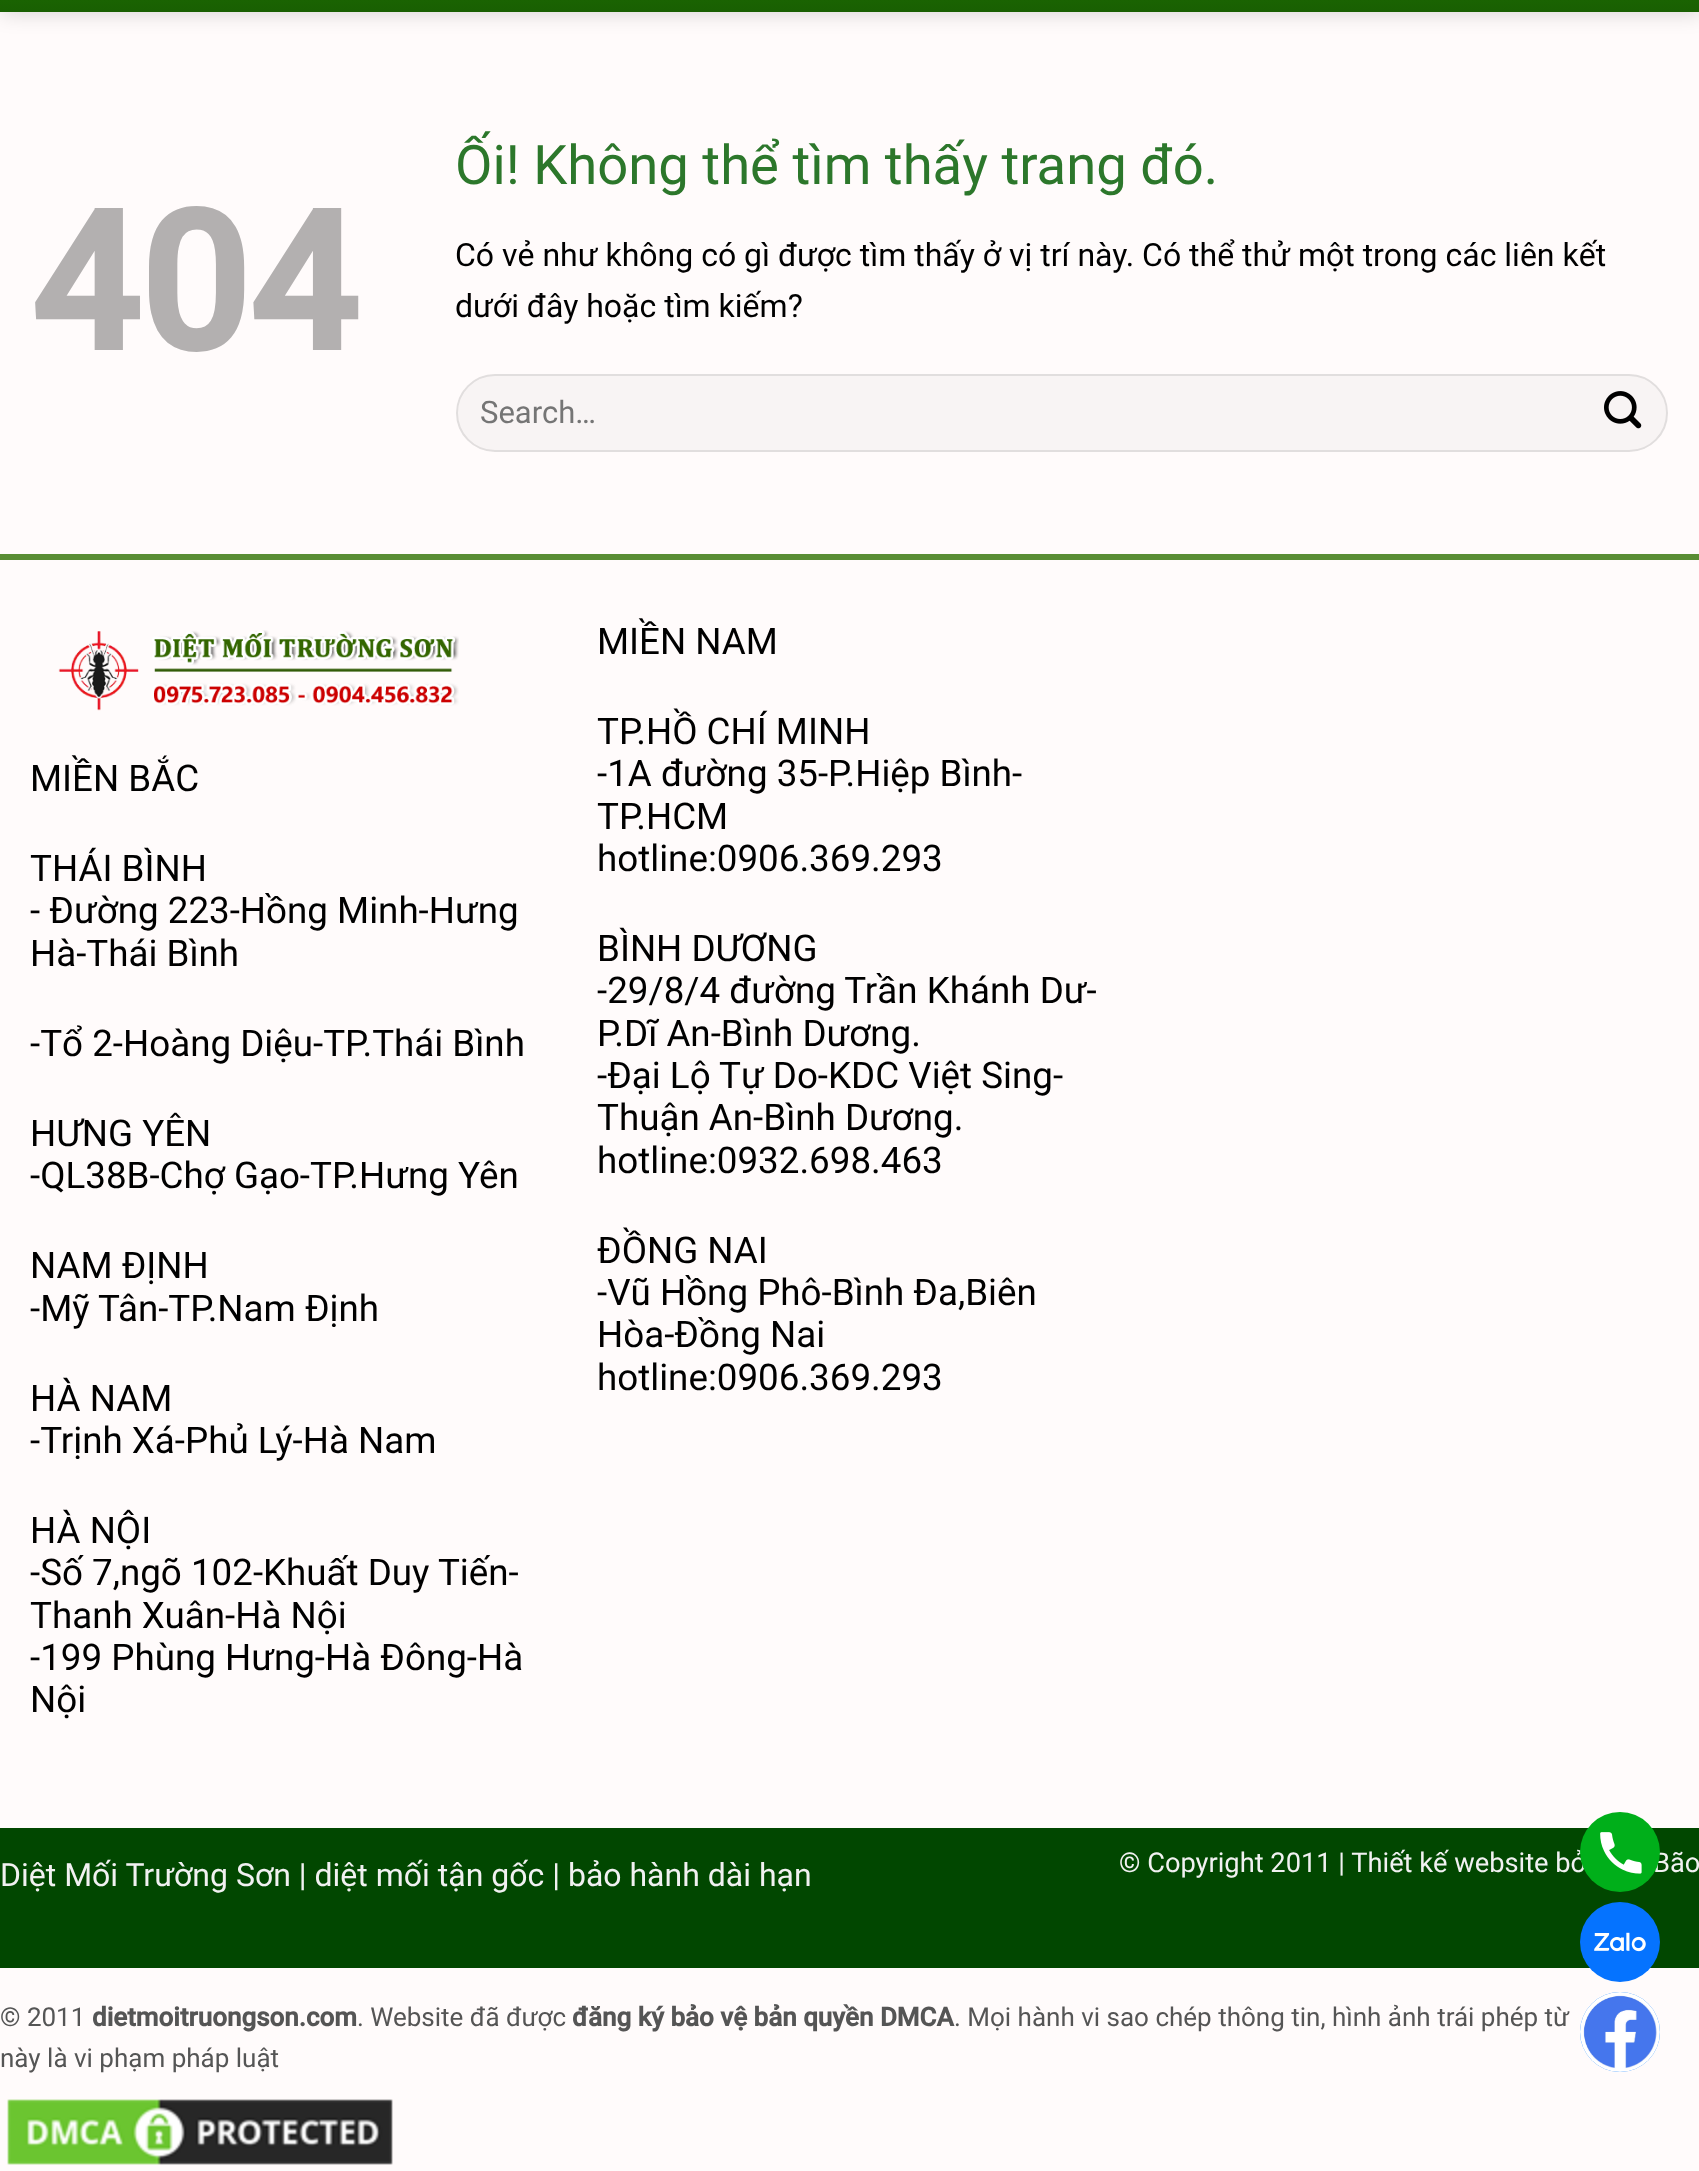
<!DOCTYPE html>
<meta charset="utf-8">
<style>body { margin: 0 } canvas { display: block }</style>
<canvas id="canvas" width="1699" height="2171"></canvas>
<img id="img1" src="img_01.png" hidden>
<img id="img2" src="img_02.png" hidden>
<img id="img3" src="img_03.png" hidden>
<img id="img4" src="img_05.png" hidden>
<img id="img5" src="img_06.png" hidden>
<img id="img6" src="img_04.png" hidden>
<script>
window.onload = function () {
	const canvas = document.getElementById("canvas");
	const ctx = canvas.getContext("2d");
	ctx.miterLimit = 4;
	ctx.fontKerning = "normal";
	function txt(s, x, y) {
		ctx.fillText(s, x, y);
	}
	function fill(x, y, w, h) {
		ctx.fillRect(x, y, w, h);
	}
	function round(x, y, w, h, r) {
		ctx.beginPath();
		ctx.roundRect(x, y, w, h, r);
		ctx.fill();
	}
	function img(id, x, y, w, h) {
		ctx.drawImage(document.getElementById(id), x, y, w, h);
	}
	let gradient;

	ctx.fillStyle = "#FFFBFB";
	fill(0, 0, 1699, 2171);
	ctx.fillStyle = "rgba(0, 0, 0, 0.15)";
	ctx.filter = "blur(10px)";
	ctx.beginPath();
	ctx.rect(2, -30, 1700, 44);
	ctx.fill();
	ctx.filter = "none";
	gradient = ctx.createLinearGradient(850, 12, 850, -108);
	gradient.addColorStop(0, "#195F02");
	gradient.addColorStop(1, "#238801");
	ctx.fillStyle = gradient;
	fill(0, 0, 1699, 12);
	ctx.fillStyle = "#F8F4F4";
	round(456, 374, 1212, 78, 39);
	ctx.beginPath();
	ctx.roundRect(457, 375, 1210, 76, 38);
	ctx.strokeStyle = "rgba(0, 0, 0, 0.09)";
	ctx.lineWidth = 2;
	ctx.stroke();
	img("img1", 1604, 391, 38, 38);
	ctx.fillStyle = "#598D34";
	fill(0, 554, 1699, 6);
	img("img2", 58, 630, 401, 81);
	ctx.fillStyle = "#014700";
	fill(0, 1828, 1699, 140);
	img("img3", 7, 2099, 386, 66);
	ctx.fillStyle = "#0573FF";
	ctx.beginPath();
	ctx.arc(1620, 1942, 40, 0, Math.PI * 2);
	ctx.fill();
	img("img4", 1594, 1932, 52, 20);
	ctx.fillStyle = "#0A7CFF";
	ctx.beginPath();
	ctx.arc(1620, 2032, 40, 0, Math.PI * 2);
	ctx.fill();
	img("img5", 1580, 1992, 80, 80);
	ctx.font = "bold 192px Roboto";
	ctx.fillStyle = "#B3B0B0";
	txt("404", 30, 350);
	ctx.font = "54.4px Roboto";
	ctx.fillStyle = "#2C772B";
	txt("Ối! Không thể tìm thấy trang đó.", 455, 184);
	ctx.font = "32px Roboto";
	ctx.fillStyle = "#000000";
	txt("Có vẻ như không có gì được tìm thấy ở vị trí này. Có thể thử một trong các liên kết", 455, 266);
	txt("dưới đây hoặc tìm kiếm?", 455, 317);
	ctx.font = "31px Roboto";
	ctx.fillStyle = "#757575";
	txt("Search…", 480, 423);
	ctx.font = "36.75px Roboto";
	ctx.fillStyle = "#000000";
	txt("MIỀN BẮC", 30, 791);
	txt("THÁI BÌNH", 30, 881);
	txt("- Đường 223-Hồng Minh-Hưng", 30, 923);
	txt("Hà-Thái Bình", 30, 966);
	txt("-Tổ 2-Hoàng Diệu-TP.Thái Bình", 30, 1056);
	txt("HƯNG YÊN", 30, 1146);
	txt("-QL38B-Chợ Gạo-TP.Hưng Yên", 30, 1188);
	txt("NAM ĐỊNH", 30, 1278);
	txt("-Mỹ Tân-TP.Nam Định", 30, 1321);
	txt("HÀ NAM", 30, 1411);
	txt("-Trịnh Xá-Phủ Lý-Hà Nam", 30, 1453);
	txt("HÀ NỘI", 30, 1543);
	txt("-Số 7,ngõ 102-Khuất Duy Tiến-", 30, 1585);
	txt("Thanh Xuân-Hà Nội", 30, 1628);
	txt("-199 Phùng Hưng-Hà Đông-Hà", 30, 1670);
	txt("Nội", 30, 1712);
	txt("MIỀN NAM", 597, 654);
	txt("TP.HỒ CHÍ MINH", 597, 744);
	txt("-1A đường 35-P.Hiệp Bình-", 597, 786);
	txt("TP.HCM", 597, 829);
	txt("hotline:0906.369.293", 597, 871);
	txt("BÌNH DƯƠNG", 597, 961);
	txt("-29/8/4 đường Trần Khánh Dư-", 597, 1003);
	txt("P.Dĩ An-Bình Dương.", 597, 1046);
	txt("-Đại Lộ Tự Do-KDC Việt Sing-", 597, 1088);
	txt("Thuận An-Bình Dương.", 597, 1130);
	txt("hotline:0932.698.463", 597, 1173);
	txt("ĐỒNG NAI", 597, 1263);
	txt("-Vũ Hồng Phô-Bình Đa,Biên", 597, 1305);
	txt("Hòa-Đồng Nai", 597, 1347);
	txt("hotline:0906.369.293", 597, 1390);
	ctx.font = "32px Roboto";
	ctx.fillStyle = "#F1F1F1";
	txt("Diệt Mối Trường Sơn | diệt mối tận gốc | bảo hành dài hạn", 0, 1886);
	ctx.font = "27.25px Roboto";
	txt("© Copyright 2011 | Thiết kế website bở", 1119, 1872);
	txt("Bão", 1653, 1872);
	ctx.font = "26px Roboto";
	ctx.fillStyle = "#555555";
	txt("© 2011", 0, 2026);
	ctx.font = "bold 26px Roboto";
	txt("dietmoitruongson.com", 92, 2026);
	ctx.font = "26px Roboto";
	txt(". Website đã được", 357, 2026);
	ctx.font = "bold 26px Roboto";
	txt("đăng ký bảo vệ bản quyền DMCA", 572, 2026);
	ctx.font = "26px Roboto";
	txt(". Mọi hành vi sao chép thông tin, hình ảnh trái phép từ", 954, 2026);
	txt("này là vi phạm pháp luật", 0, 2067);
	ctx.fillStyle = "#00AF1A";
	ctx.beginPath();
	ctx.arc(1620, 1852, 40, 0, Math.PI * 2);
	ctx.fill();
	img("img6", 1600, 1832, 42, 42);
};
</script>
